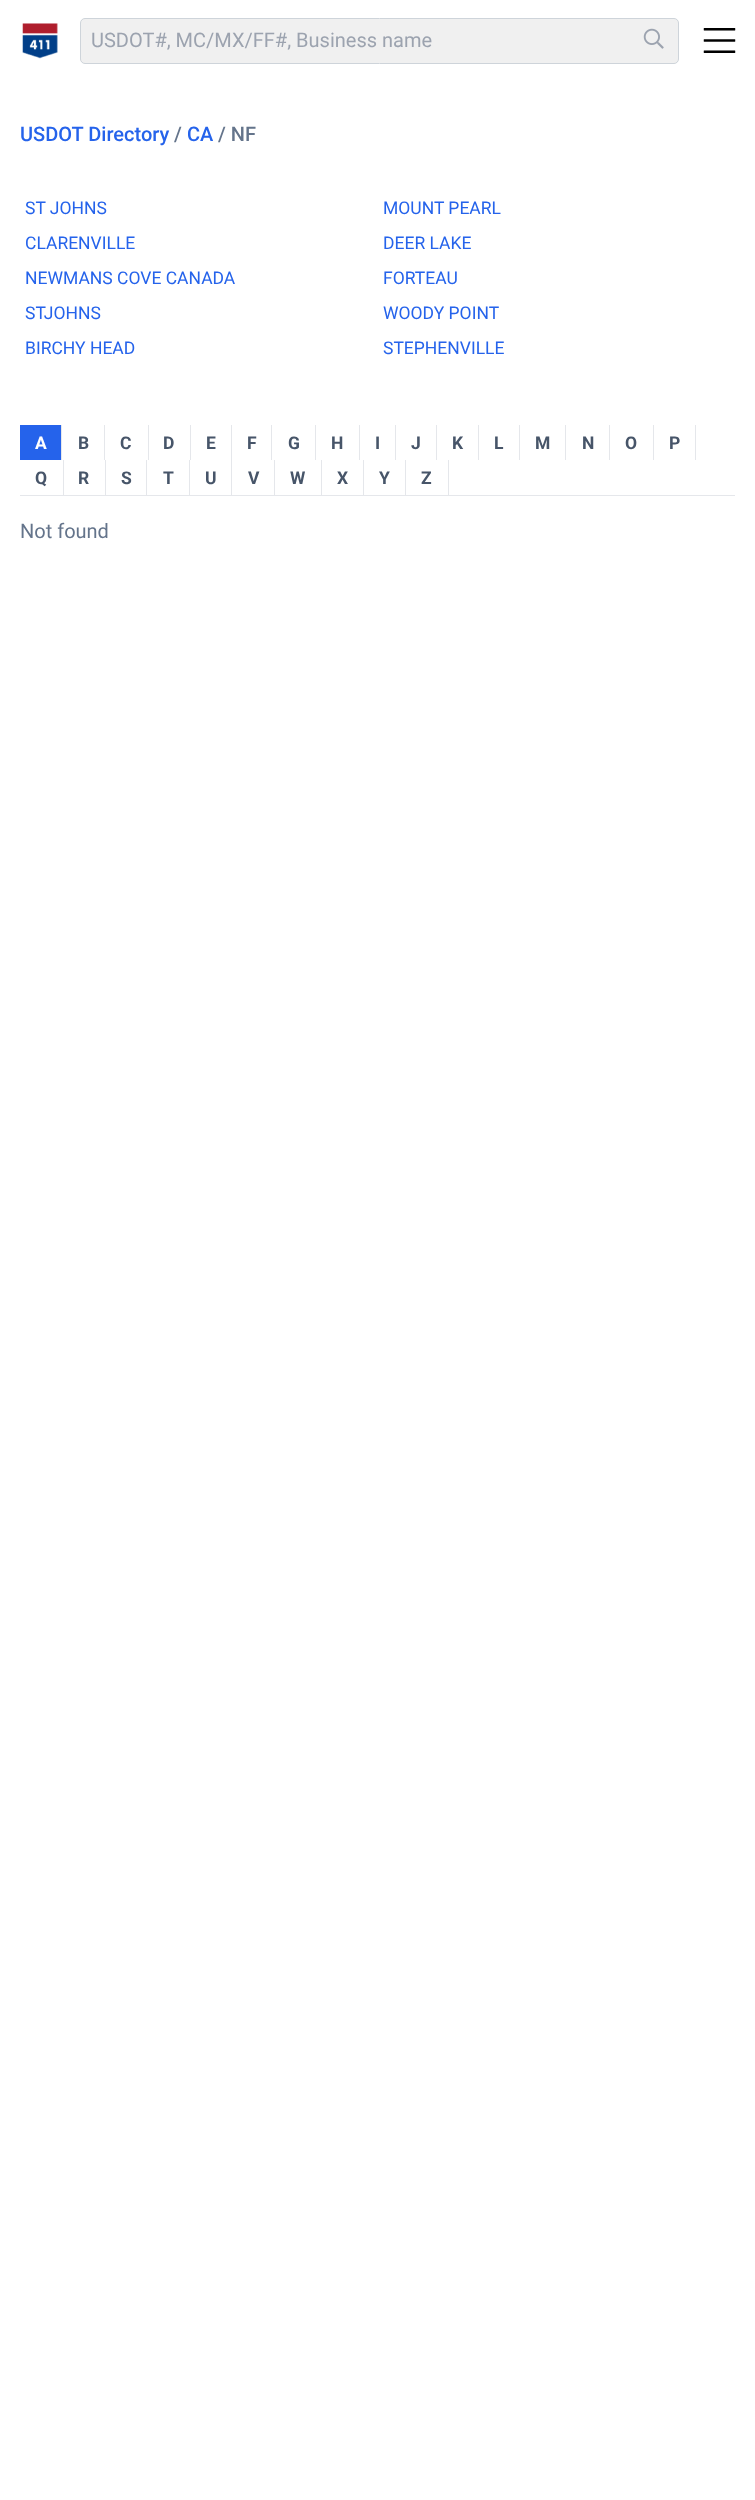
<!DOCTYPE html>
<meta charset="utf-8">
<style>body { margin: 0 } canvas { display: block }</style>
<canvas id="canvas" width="755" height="2500"></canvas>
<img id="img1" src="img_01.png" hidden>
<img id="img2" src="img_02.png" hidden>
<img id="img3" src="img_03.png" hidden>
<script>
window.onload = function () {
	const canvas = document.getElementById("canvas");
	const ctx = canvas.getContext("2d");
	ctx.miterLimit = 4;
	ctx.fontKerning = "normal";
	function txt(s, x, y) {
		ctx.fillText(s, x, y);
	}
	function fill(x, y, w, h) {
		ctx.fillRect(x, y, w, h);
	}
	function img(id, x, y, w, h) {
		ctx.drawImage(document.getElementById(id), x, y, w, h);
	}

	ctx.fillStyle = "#FFFFFF";
	fill(0, 0, 755, 2500);
	img("img1", 22, 23, 36, 36);
	ctx.fillStyle = "#F0F0F0";
	ctx.beginPath();
	ctx.roundRect(80.5, 18.5, 598, 45, 4.5);
	ctx.fill();
	ctx.strokeStyle = "#CED4DA";
	ctx.stroke();
	img("img2", 643, 28, 21, 21);
	img("img3", 703, 28, 33, 25);
	ctx.fillStyle = "#E5E7EB";
	fill(20, 495, 715, 1);
	ctx.fillStyle = "#2563EB";
	fill(20, 425, 41, 35);
	ctx.fillStyle = "#E5E7EB";
	fill(61, 425, 1, 35);
	fill(104, 425, 1, 35);
	fill(148, 425, 1, 35);
	fill(190, 425, 1, 35);
	fill(231, 425, 1, 70);
	fill(271, 425, 1, 35);
	fill(315, 425, 1, 35);
	fill(359, 425, 1, 35);
	fill(395, 425, 1, 35);
	fill(436, 425, 1, 35);
	fill(478, 425, 1, 35);
	fill(519, 425, 1, 35);
	fill(565, 425, 1, 35);
	fill(609, 425, 1, 35);
	fill(653, 425, 1, 35);
	fill(695, 425, 1, 35);
	fill(63, 460, 1, 35);
	fill(105, 460, 1, 35);
	fill(146, 460, 1, 35);
	fill(189, 460, 1, 35);
	fill(274, 460, 1, 35);
	fill(321, 460, 1, 35);
	fill(363, 460, 1, 35);
	fill(405, 460, 1, 35);
	fill(448, 460, 1, 35);
	ctx.font = "20px Roboto";
	ctx.fillStyle = "#9CA3AF";
	txt("USDOT#, MC/MX/FF#, Business name", 91, 47);
	ctx.font = "500 20px Roboto";
	ctx.fillStyle = "#2563EB";
	txt("USDOT Directory", 20, 141);
	ctx.fillStyle = "#64748B";
	txt("/", 174, 141);
	ctx.fillStyle = "#2563EB";
	txt("CA", 187, 141);
	ctx.fillStyle = "#64748B";
	txt("/ NF", 218, 141);
	ctx.font = "17.5px Roboto";
	ctx.fillStyle = "#2563EB";
	txt("ST JOHNS", 25, 214);
	txt("MOUNT PEARL", 383, 214);
	txt("CLARENVILLE", 25, 249);
	txt("DEER LAKE", 383, 249);
	txt("NEWMANS COVE CANADA", 25, 284);
	txt("FORTEAU", 383, 284);
	txt("STJOHNS", 25, 319);
	txt("WOODY POINT", 383, 319);
	txt("BIRCHY HEAD", 25, 354);
	txt("STEPHENVILLE", 383, 354);
	ctx.font = "bold 17.5px Roboto";
	ctx.fillStyle = "#FFFFFF";
	txt("A", 35, 449);
	ctx.fillStyle = "#475569";
	txt("B", 78, 449);
	txt("C", 120, 449);
	txt("D", 163, 449);
	txt("E", 206, 449);
	txt("F", 247, 449);
	txt("G", 288, 449);
	txt("H", 331, 449);
	txt("I", 375, 449);
	txt("J", 411, 449);
	txt("K", 452, 449);
	txt("L", 494, 449);
	txt("M", 535, 449);
	txt("N", 582, 449);
	txt("O", 625, 449);
	txt("P", 669, 449);
	txt("Q", 35, 484);
	txt("R", 78, 484);
	txt("S", 121, 484);
	txt("T", 163, 484);
	txt("U", 205, 484);
	txt("V", 248, 484);
	txt("W", 290, 484);
	txt("X", 337, 484);
	txt("Y", 379, 484);
	txt("Z", 421, 484);
	ctx.font = "20px Roboto";
	ctx.fillStyle = "#64748B";
	txt("Not found", 20, 538);
};
</script>
